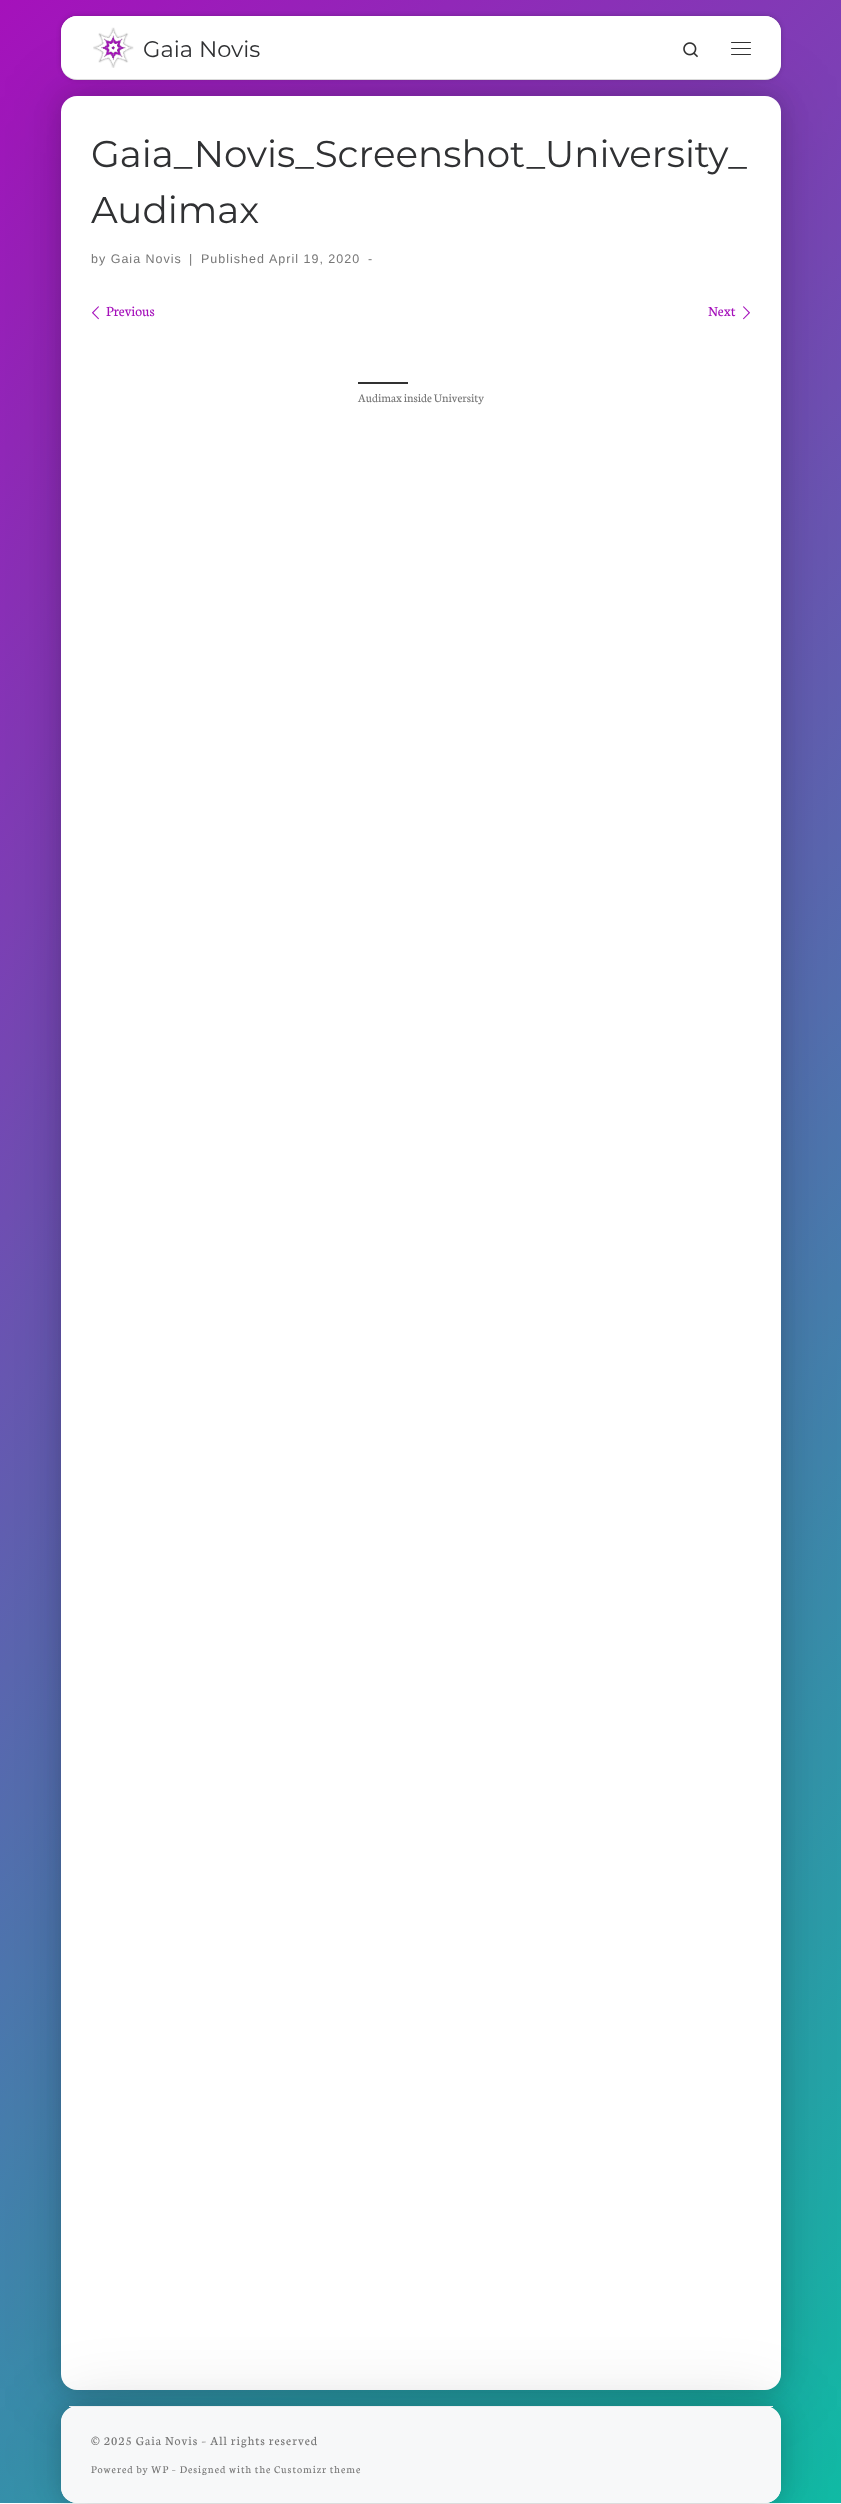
<!DOCTYPE html>
<meta charset="utf-8">
<style>body { margin: 0 } canvas { display: block }</style>
<canvas id="canvas" width="841" height="2504"></canvas>
<img id="img1" src="img_01.png" hidden>
<img id="img2" src="img_02.png" hidden>
<img id="img3" src="img_03.png" hidden>
<img id="img4" src="img_04.png" hidden>
<script>
window.onload = function () {
	const canvas = document.getElementById("canvas");
	const ctx = canvas.getContext("2d");
	ctx.miterLimit = 4;
	ctx.fontKerning = "normal";
	function txt(s, x, y) {
		ctx.fillText(s, x, y);
	}
	function fill(x, y, w, h) {
		ctx.fillRect(x, y, w, h);
	}
	function round(x, y, w, h, r) {
		ctx.beginPath();
		ctx.roundRect(x, y, w, h, r);
		ctx.fill();
	}
	function img(id, x, y, w, h) {
		ctx.drawImage(document.getElementById(id), x, y, w, h);
	}
	let gradient;

	ctx.fillStyle = "#FFFFFF";
	fill(0, 0, 841, 2504);
	gradient = ctx.createLinearGradient(-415, 416, 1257, 2088);
	gradient.addColorStop(0, "#A511BB");
	gradient.addColorStop(1, "#11BBA5");
	ctx.fillStyle = gradient;
	fill(0, 0, 841, 2503);
	ctx.fillStyle = "rgba(0, 0, 0, 0.12)";
	ctx.filter = "blur(35px)";
	ctx.beginPath();
	ctx.roundRect(61, 96, 720, 2294, 16);
	ctx.fill();
	ctx.filter = "none";
	ctx.fillStyle = "rgba(0, 0, 0, 0.09)";
	ctx.filter = "blur(14.5px)";
	ctx.beginPath();
	ctx.roundRect(61, 96, 720, 2294, 16);
	ctx.fill();
	ctx.filter = "none";
	ctx.fillStyle = "rgba(0, 0, 0, 0.07)";
	ctx.filter = "blur(8px)";
	ctx.beginPath();
	ctx.roundRect(61, 96, 720, 2294, 16);
	ctx.fill();
	ctx.filter = "none";
	ctx.fillStyle = "#FFFFFF";
	round(61, 16, 720, 64, 16);
	ctx.fillStyle = "rgba(49, 49, 49, 0.09)";
	fill(69, 79, 704, 1);
	ctx.fillStyle = "rgba(255, 255, 255, 0.15)";
	ctx.beginPath();
	ctx.moveTo(61, 63);
	ctx.lineTo(61, 64);
	ctx.bezierCurveTo(61, 73, 68, 80, 77, 80);
	ctx.lineTo(765, 80);
	ctx.bezierCurveTo(774, 80, 781, 73, 781, 64);
	ctx.lineTo(781, 63);
	ctx.bezierCurveTo(781, 72, 774, 79, 765, 79);
	ctx.lineTo(77, 79);
	ctx.bezierCurveTo(68, 79, 61, 72, 61, 63);
	ctx.closePath();
	ctx.fill();
	ctx.fillStyle = "rgba(0, 0, 0, 0.2)";
	ctx.filter = "blur(2.5px)";
	ctx.beginPath();
	ctx.roundRect(61, 16, 720, 63, 16);
	ctx.fill();
	ctx.filter = "none";
	ctx.fillStyle = "#FFFFFF";
	round(61, 16, 720, 63, 16);
	img("img1", 93, 27, 41, 41);
	img("img2", 683, 42, 15, 16);
	ctx.fillStyle = "#313131";
	round(731, 42, 20, 1, 0.5);
	round(731, 48, 20, 1, 0.5);
	round(731, 54, 20, 1, 0.5);
	ctx.fillStyle = "#FFFFFF";
	round(61, 96, 720, 2294, 16);
	img("img3", 92, 306, 7, 14);
	img("img4", 743, 306, 7, 14);
	ctx.fillStyle = "#313131";
	fill(358, 382, 50, 2);
	ctx.fillStyle = "rgba(0, 0, 0, 0.12)";
	ctx.filter = "blur(35px)";
	ctx.beginPath();
	ctx.roundRect(61, 2406, 720, 97, 16);
	ctx.fill();
	ctx.filter = "none";
	ctx.fillStyle = "rgba(0, 0, 0, 0.09)";
	ctx.filter = "blur(14.5px)";
	ctx.beginPath();
	ctx.roundRect(61, 2406, 720, 97, 16);
	ctx.fill();
	ctx.filter = "none";
	ctx.fillStyle = "rgba(0, 0, 0, 0.07)";
	ctx.filter = "blur(8px)";
	ctx.beginPath();
	ctx.roundRect(61, 2406, 720, 97, 16);
	ctx.fill();
	ctx.filter = "none";
	ctx.fillStyle = "#FFFFFF";
	round(61, 2406, 720, 97, 16);
	ctx.fillStyle = "#ECEEEF";
	fill(69, 2406, 704, 1);
	ctx.fillStyle = "#F7F8F9";
	round(61, 2407, 720, 96, 16);
	ctx.font = "100 22.5px Montserrat";
	ctx.fillStyle = "#303133";
	txt("Gaia Novis", 143, 57);
	ctx.font = "100 37.3px Montserrat";
	txt("Gaia_Novis_Screenshot_University_", 91, 167);
	txt("Audimax", 91, 223);
	ctx.letterSpacing = "1px";
	ctx.font = "12.5px Liberation Sans";
	ctx.fillStyle = "#777777";
	txt("by Gaia Novis", 91, 263);
	txt("|", 189, 263);
	txt("Published", 201, 263);
	txt("April 19, 2020", 269, 263);
	txt("-", 368, 263);
	ctx.letterSpacing = "0px";
	ctx.font = "15px Neuton";
	ctx.fillStyle = "#A511BB";
	txt("Previous", 106, 316);
	txt("Next", 708, 316);
	ctx.font = "12.5px Neuton";
	ctx.fillStyle = "#777777";
	txt("Audimax inside University", 358, 402);
	ctx.letterSpacing = "1px";
	ctx.font = "13.1px Neuton";
	txt("© 2025 Gaia Novis – All rights reserved", 91, 2445);
	ctx.font = "11.2px Neuton";
	txt("Powered by WP – Designed with the Customizr theme", 91, 2473);
};
</script>
